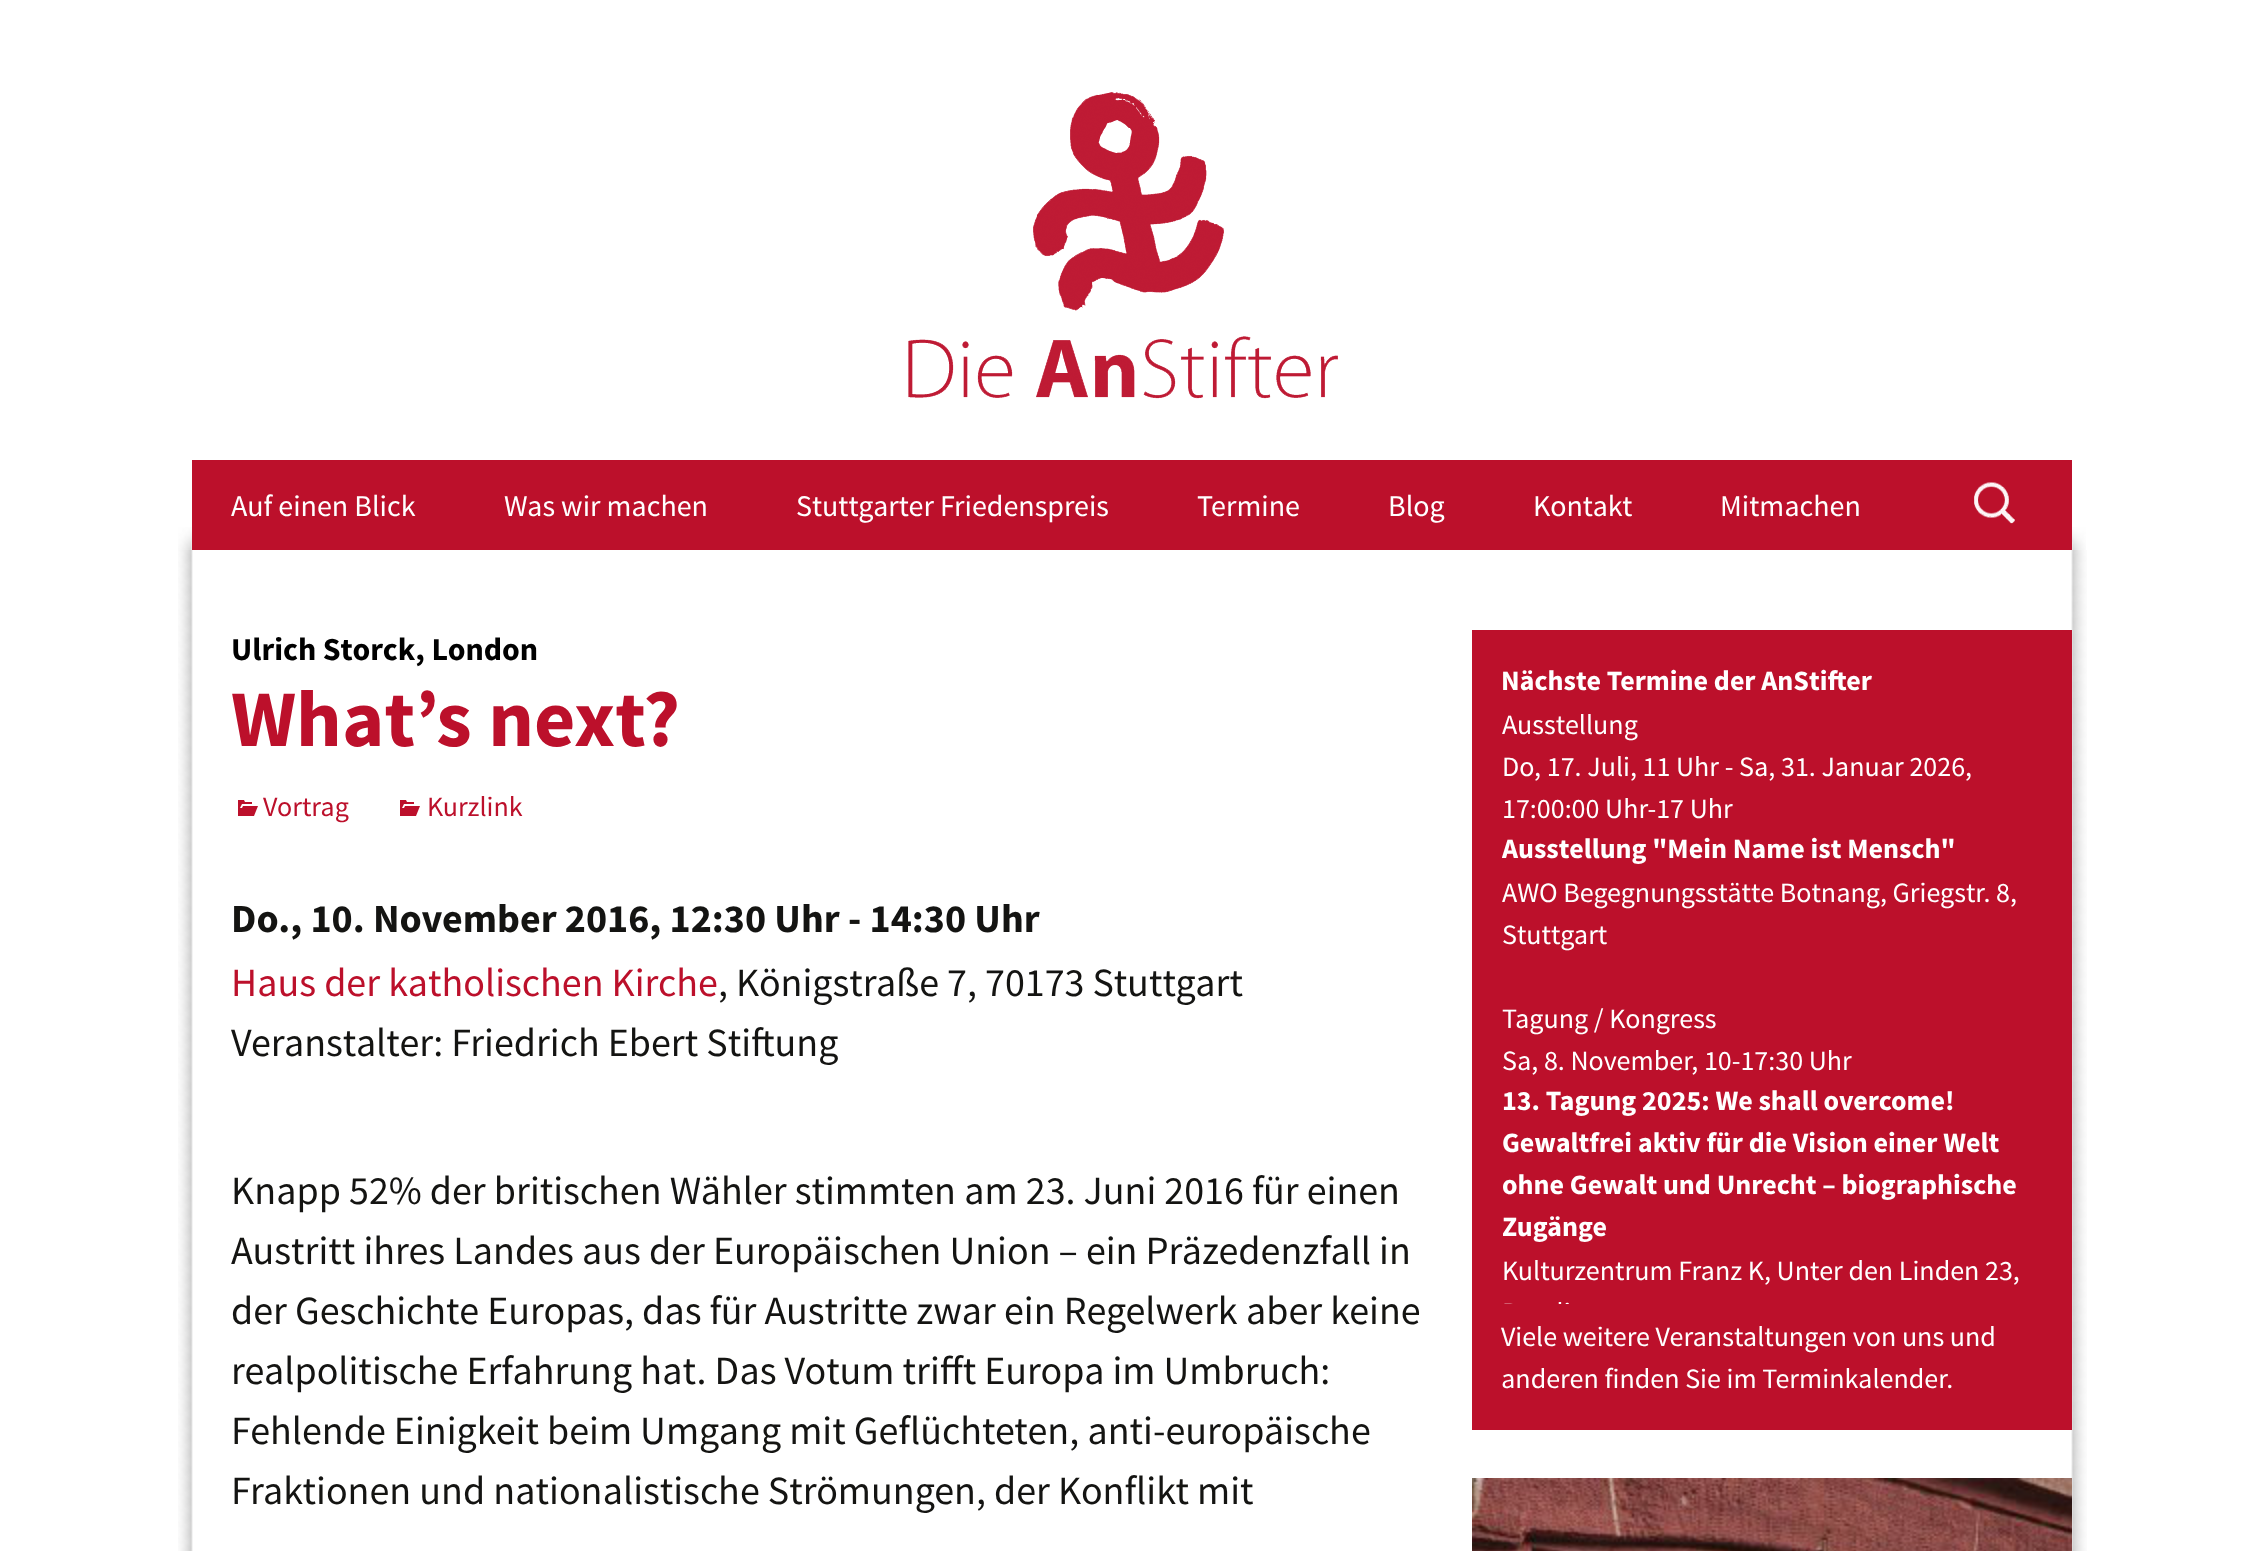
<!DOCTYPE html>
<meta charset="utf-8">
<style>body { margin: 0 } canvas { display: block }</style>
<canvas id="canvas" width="2262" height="1551"></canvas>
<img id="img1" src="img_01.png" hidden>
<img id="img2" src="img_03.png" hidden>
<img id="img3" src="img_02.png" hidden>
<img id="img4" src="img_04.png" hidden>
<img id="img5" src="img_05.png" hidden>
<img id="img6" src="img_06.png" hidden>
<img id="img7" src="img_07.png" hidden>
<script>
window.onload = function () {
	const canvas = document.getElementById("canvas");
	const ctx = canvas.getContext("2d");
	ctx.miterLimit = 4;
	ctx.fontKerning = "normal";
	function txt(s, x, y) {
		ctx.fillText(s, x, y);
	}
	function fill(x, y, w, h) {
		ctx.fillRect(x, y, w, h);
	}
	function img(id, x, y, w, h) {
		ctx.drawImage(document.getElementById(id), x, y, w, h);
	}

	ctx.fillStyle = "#FFFFFF";
	fill(0, 0, 2262, 1551);
	ctx.fillStyle = "#BC102B";
	fill(908, 92, 430, 307);
	img("img1", 192, 0, 1880, 460);
	img("img2", 178, 527, 1908, 23);
	fill(192, 460, 1880, 90);
	img("img3", 1974, 482, 41, 42);
	img("img4", 178, 550, 1909, 1001);
	img("img5", 238, 800, 20, 16);
	img("img5", 400, 800, 20, 16);
	fill(1472, 630, 600, 800);
	img("img6", 1502, 714, 517, 590);
	img("img7", 1472, 1478, 600, 73);
	ctx.font = "30px Source Sans Pro";
	ctx.fillStyle = "#FFFFFF";
	txt("Auf einen Blick", 231, 516);
	txt("Was wir machen", 504, 516);
	txt("Stuttgarter Friedenspreis", 796, 516);
	txt("Termine", 1197, 516);
	txt("Blog", 1388, 516);
	txt("Kontakt", 1533, 516);
	txt("Mitmachen", 1720, 516);
	ctx.font = "bold 32px Source Sans Pro";
	ctx.fillStyle = "#000000";
	txt("Ulrich Storck, London", 231, 660);
	ctx.font = "bold 80px Source Sans Pro";
	ctx.fillStyle = "#BC102B";
	txt("What’s next?", 231, 746);
	ctx.font = "28px Source Sans Pro";
	txt("Vortrag", 263, 816);
	txt("Kurzlink", 427, 816);
	ctx.font = "bold 40px Source Sans Pro";
	ctx.fillStyle = "#141412";
	txt("Do., 10. November 2016, 12:30 Uhr - 14:30 Uhr", 231, 932);
	ctx.font = "40px Source Sans Pro";
	ctx.fillStyle = "#BC102B";
	txt("Haus der katholischen Kirche", 231, 996);
	ctx.fillStyle = "#141412";
	txt(", Königstraße 7, 70173 Stuttgart", 718, 996);
	txt("Veranstalter: Friedrich Ebert Stiftung", 231, 1056);
	txt("Knapp 52% der britischen Wähler stimmten am 23. Juni 2016 für einen", 231, 1204);
	txt("Austritt ihres Landes aus der Europäischen Union – ein Präzedenzfall in", 231, 1264);
	txt("der Geschichte Europas, das für Austritte zwar ein Regelwerk aber keine", 231, 1324);
	txt("realpolitische Erfahrung hat. Das Votum trifft Europa im Umbruch:", 231, 1384);
	txt("Fehlende Einigkeit beim Umgang mit Geflüchteten, anti-europäische", 231, 1444);
	txt("Fraktionen und nationalistische Strömungen, der Konflikt mit", 231, 1504);
	ctx.font = "bold 28px Source Sans Pro";
	ctx.fillStyle = "#FFFFFF";
	txt("Nächste Termine der AnStifter", 1501, 690);
	ctx.font = "28px Source Sans Pro";
	txt("Viele weitere Veranstaltungen von uns und", 1501, 1346);
	txt("anderen finden Sie im Terminkalender.", 1501, 1388);
};
</script>
